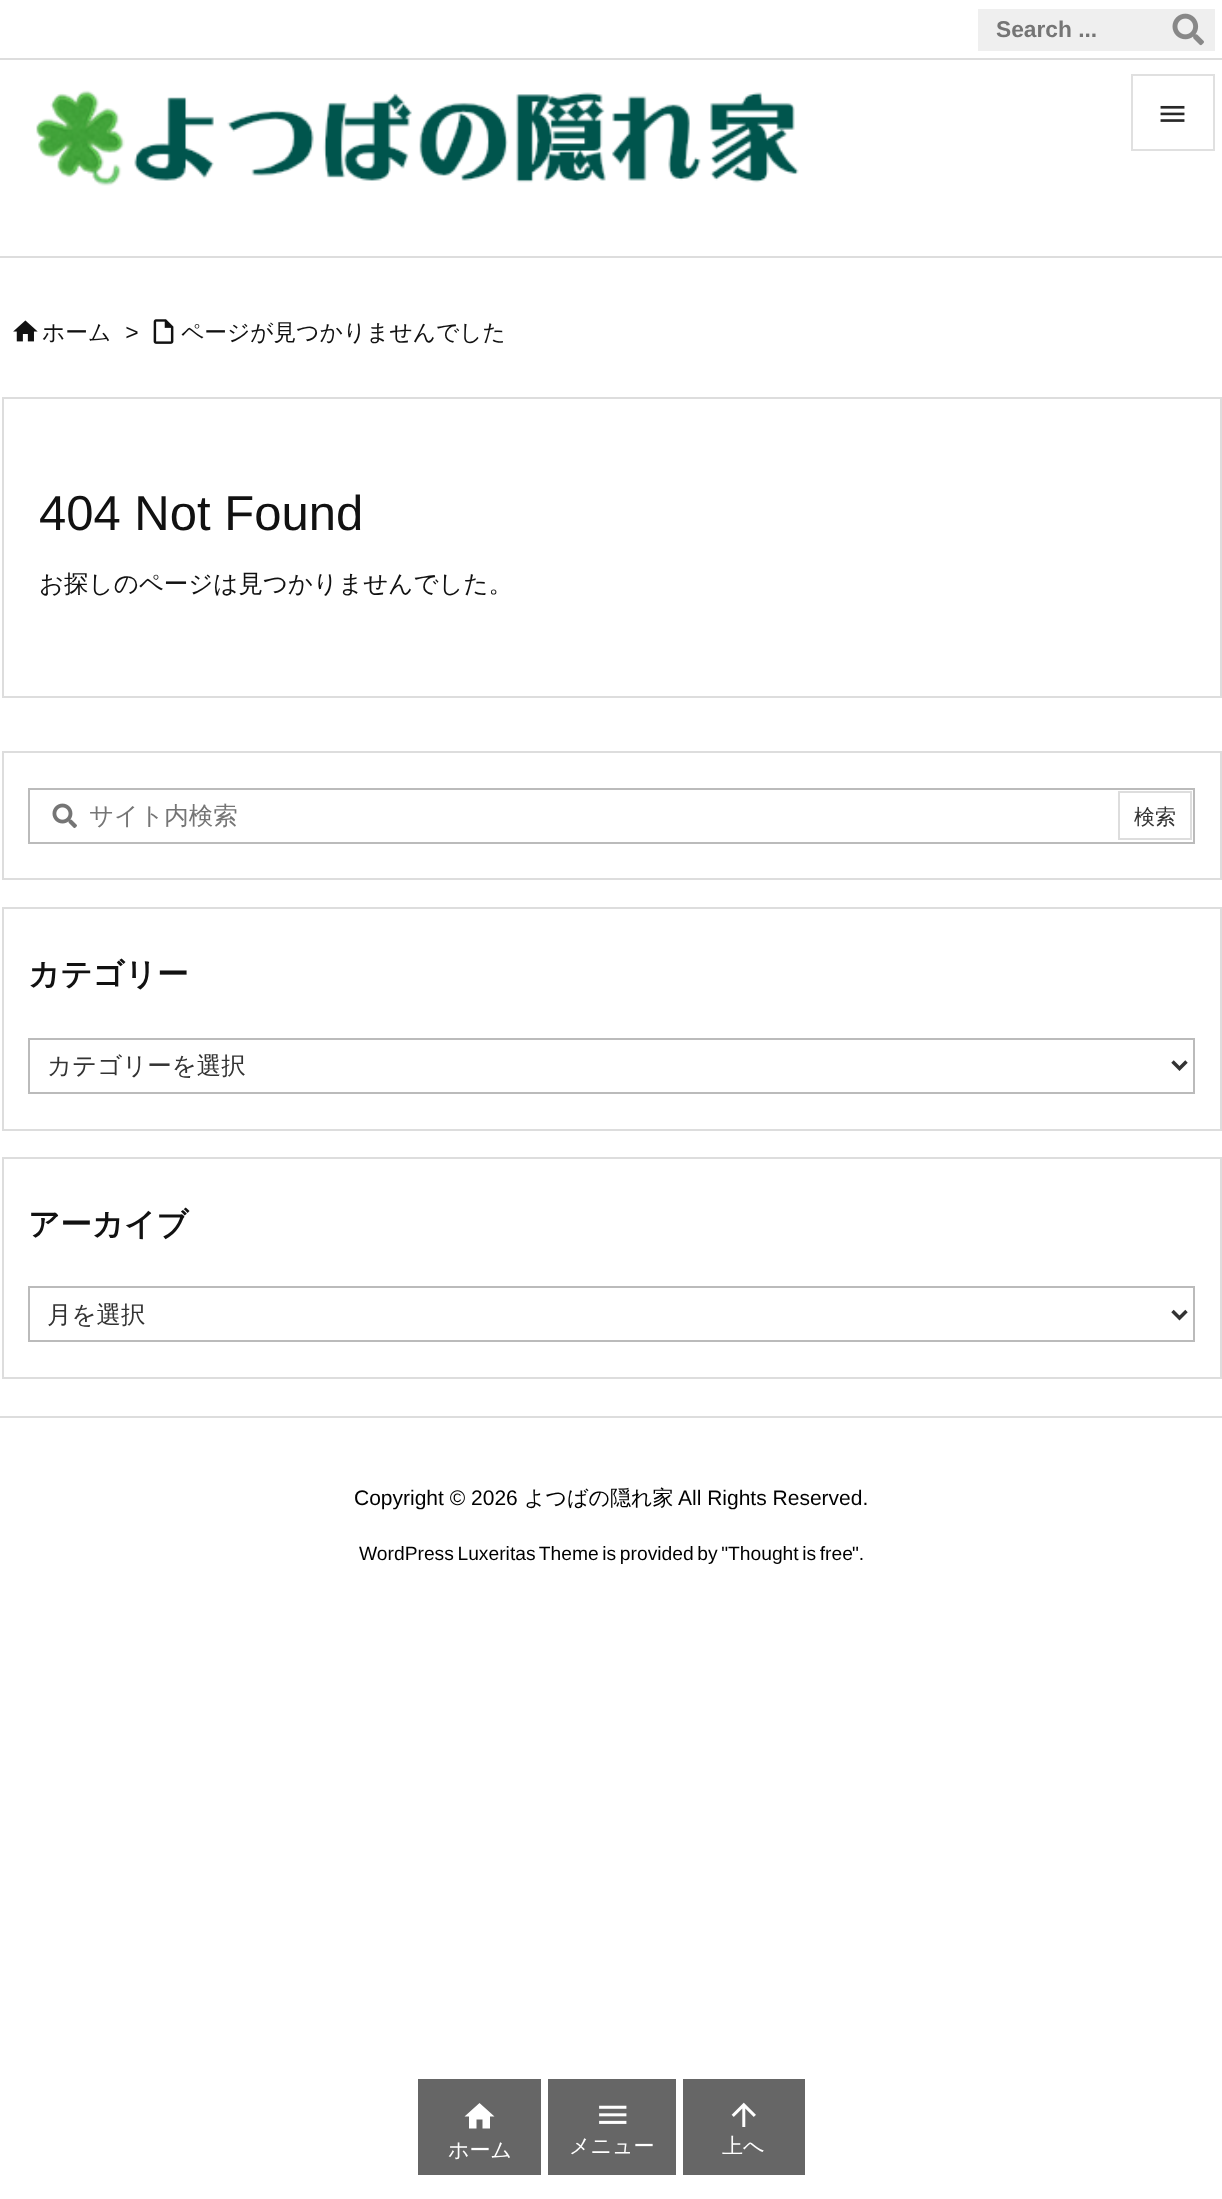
<!DOCTYPE html>
<meta charset="utf-8">
<style>body { margin: 0 } canvas { display: block }</style>
<canvas id="canvas" width="1222" height="2199"></canvas>
<img id="img1" src="img_01.png" hidden>
<img id="img2" src="img_02.png" hidden>
<img id="img3" src="img_03.png" hidden>
<img id="img4" src="img_04.png" hidden>
<img id="img5" src="img_05.png" hidden>
<img id="img6" src="img_06.png" hidden>
<img id="img7" src="img_07.png" hidden>
<img id="img8" src="img_08.png" hidden>
<script>
window.onload = function () {
	const canvas = document.getElementById("canvas");
	const ctx = canvas.getContext("2d");
	ctx.miterLimit = 4;
	ctx.fontKerning = "normal";
	function txt(s, x, y) {
		ctx.fillText(s, x, y);
	}
	function fill(x, y, w, h) {
		ctx.fillRect(x, y, w, h);
	}
	function img(id, x, y, w, h) {
		ctx.drawImage(document.getElementById(id), x, y, w, h);
	}

	ctx.fillStyle = "#FFFFFF";
	fill(0, 0, 1222, 2199);
	ctx.fillStyle = "#DDDDDD";
	fill(0, 58, 1222, 2);
	ctx.fillStyle = "#EFEFEF";
	fill(978, 9, 237, 42);
	img("img1", 1172, 13, 32, 33);
	ctx.fillStyle = "#DDDDDD";
	fill(0, 256, 1222, 2);
	ctx.strokeStyle = "#E0E0E0";
	ctx.lineWidth = 2;
	ctx.strokeRect(1132, 75, 82, 75);
	img("img2", 1160, 105, 25, 17);
	img("img3", 36, 90, 763, 96);
	img("img4", 13, 320, 25, 22);
	img("img5", 153, 319, 21, 25);
	ctx.strokeStyle = "#DDDDDD";
	ctx.strokeRect(3, 398, 1218, 299);
	ctx.strokeRect(3, 752, 1218, 127);
	ctx.strokeStyle = "#BBBBBB";
	ctx.strokeRect(29, 789, 1165, 54);
	img("img6", 52, 803, 25, 26);
	ctx.strokeStyle = "#DDDDDD";
	ctx.strokeRect(1119, 792, 72, 47);
	ctx.strokeRect(3, 908, 1218, 222);
	ctx.strokeStyle = "#BBBBBB";
	ctx.strokeRect(29, 1039, 1165, 54);
	ctx.beginPath();
	ctx.moveTo(1172.5, 1061.5);
	ctx.lineTo(1179.5, 1068.5);
	ctx.lineTo(1186.5, 1061.5);
	ctx.strokeStyle = "#333333";
	ctx.lineWidth = 3.5;
	ctx.stroke();
	ctx.strokeStyle = "#DDDDDD";
	ctx.lineWidth = 2;
	ctx.strokeRect(3, 1158, 1218, 220);
	ctx.strokeStyle = "#BBBBBB";
	ctx.strokeRect(29, 1287, 1165, 54);
	ctx.beginPath();
	ctx.moveTo(1172.5, 1311);
	ctx.lineTo(1179.5, 1318);
	ctx.lineTo(1186.5, 1311);
	ctx.strokeStyle = "#333333";
	ctx.lineWidth = 3.5;
	ctx.stroke();
	fill(0, 1416, 1222, 2);
	ctx.fillStyle = "#666666";
	fill(418, 2079, 123, 96);
	ctx.fillStyle = "#FFFFFF";
	ctx.beginPath();
	ctx.moveTo(476.5, 2128.5);
	ctx.lineTo(469, 2128.5);
	ctx.lineTo(469, 2116.5);
	ctx.lineTo(464.5, 2116.5);
	ctx.lineTo(479.5, 2103);
	ctx.lineTo(494.5, 2116.5);
	ctx.lineTo(490, 2116.5);
	ctx.lineTo(490, 2128.5);
	ctx.lineTo(482.5, 2128.5);
	ctx.lineTo(482.5, 2119.5);
	ctx.lineTo(476.5, 2119.5);
	ctx.closePath();
	ctx.fill();
	ctx.fillStyle = "#666666";
	fill(548, 2079, 128, 96);
	img("img7", 599, 2105, 28, 19);
	fill(683, 2079, 122, 96);
	img("img8", 731, 2102, 25, 25);
	ctx.font = "bold 22.75px Liberation Sans";
	ctx.fillStyle = "#757575";
	txt("Search ...", 996, 37);
	ctx.font = "500 22.75px WenQuanYi Zen Hei";
	ctx.fillStyle = "#111111";
	txt("ホーム", 42, 340);
	ctx.font = "italic 22.75px Liberation Sans";
	txt(">", 125, 340);
	ctx.font = "500 22.75px WenQuanYi Zen Hei";
	txt("ページが見つかりませんでした", 181, 340);
	ctx.font = "49px Liberation Sans";
	txt("404 Not Found", 39, 530);
	ctx.font = "500 24.5px WenQuanYi Zen Hei";
	txt("お探しのページは見つかりませんでした。", 39, 592);
	ctx.fillStyle = "#757575";
	txt("サイト内検索", 89, 824);
	ctx.font = "500 21px WenQuanYi Zen Hei";
	ctx.fillStyle = "#333333";
	txt("検索", 1134, 824);
	ctx.font = "bold 31.5px WenQuanYi Zen Hei";
	ctx.fillStyle = "#111111";
	txt("カテゴリー", 28, 985);
	ctx.font = "500 24.5px WenQuanYi Zen Hei";
	ctx.fillStyle = "#333333";
	txt("カテゴリーを選択", 47, 1074);
	ctx.font = "bold 31.5px WenQuanYi Zen Hei";
	ctx.fillStyle = "#111111";
	txt("アーカイブ", 28, 1235);
	ctx.font = "500 24.5px WenQuanYi Zen Hei";
	ctx.fillStyle = "#333333";
	txt("月を選択", 47, 1323);
	ctx.font = "21px Liberation Sans";
	ctx.fillStyle = "#000000";
	txt("Copyright © 2026", 354, 1505);
	ctx.font = "500 21px WenQuanYi Zen Hei";
	txt("よつばの隠れ家", 524, 1505);
	ctx.font = "21px Liberation Sans";
	txt("All Rights Reserved.", 678, 1505);
	ctx.wordSpacing = "-1.75px";
	ctx.font = "19.25px Liberation Sans";
	txt("WordPress Luxeritas Theme is provided by \"Thought is free", 359, 1560);
	ctx.wordSpacing = "0px";
	txt("\".", 852, 1560);
	ctx.font = "500 21px WenQuanYi Zen Hei";
	ctx.fillStyle = "#FFFFFF";
	txt("ホーム", 448, 2157);
	txt("メニュー", 569, 2153);
	txt("上へ", 722, 2153);
};
</script>
